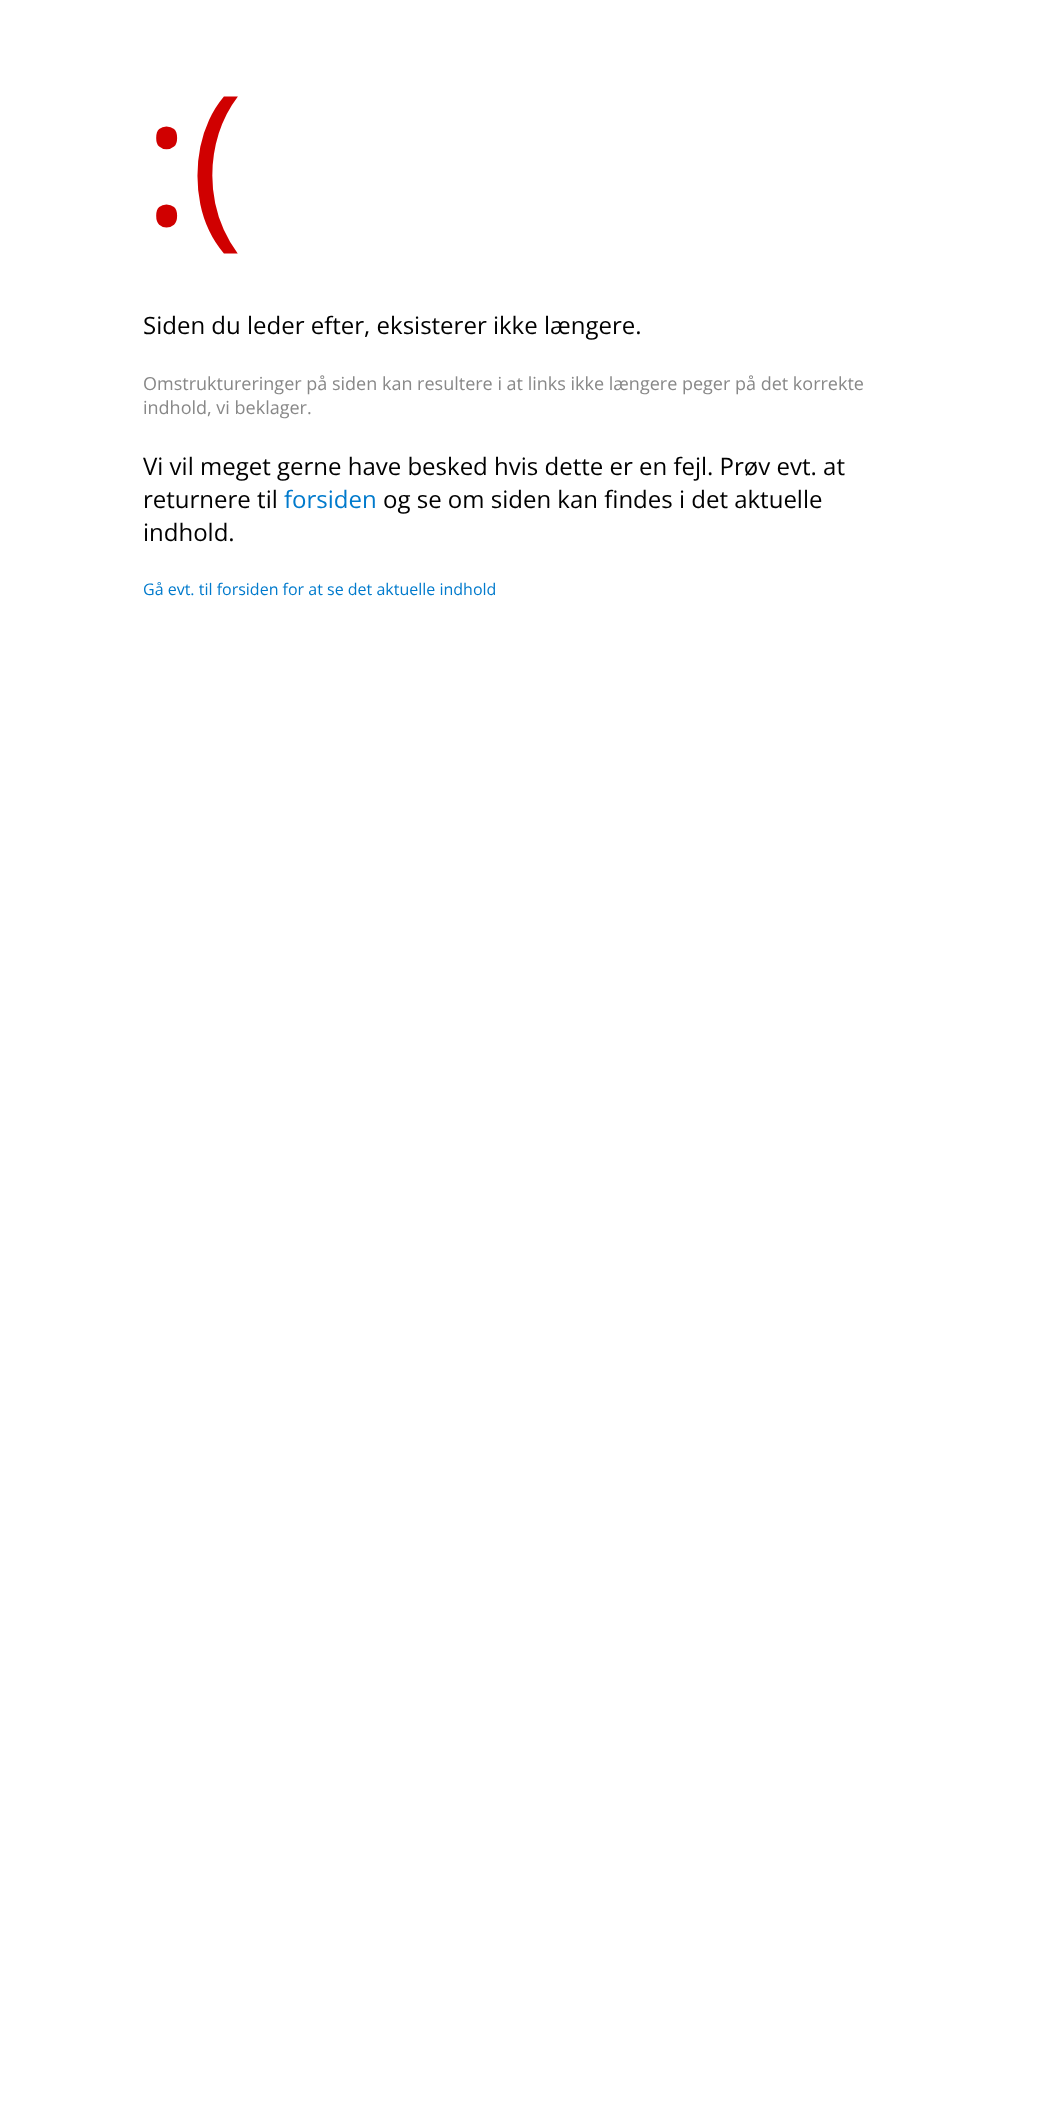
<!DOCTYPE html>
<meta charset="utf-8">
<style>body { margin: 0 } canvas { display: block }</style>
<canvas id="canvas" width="1046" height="2102"></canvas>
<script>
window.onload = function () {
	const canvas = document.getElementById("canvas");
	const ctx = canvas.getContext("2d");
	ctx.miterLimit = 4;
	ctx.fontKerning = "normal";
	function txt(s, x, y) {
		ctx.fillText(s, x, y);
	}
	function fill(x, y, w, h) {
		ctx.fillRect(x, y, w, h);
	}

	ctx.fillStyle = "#FFFFFF";
	fill(0, 0, 1046, 2102);
	ctx.font = "180px Open Sans";
	ctx.fillStyle = "#D00000";
	txt(":(", 143, 225);
	ctx.font = "24px Open Sans";
	ctx.fillStyle = "#000000";
	txt("Siden du leder efter, eksisterer ikke længere.", 143, 334);
	ctx.font = "18px Open Sans";
	ctx.fillStyle = "#888888";
	txt("Omstruktureringer på siden kan resultere i at links ikke længere peger på det korrekte", 143, 390);
	txt("indhold, vi beklager.", 143, 414);
	ctx.font = "24px Open Sans";
	ctx.fillStyle = "#000000";
	txt("Vi vil meget gerne have besked hvis dette er en fejl. Prøv evt. at", 143, 475);
	txt("returnere til", 143, 508);
	ctx.fillStyle = "#007ACC";
	txt("forsiden", 284, 508);
	ctx.fillStyle = "#000000";
	txt("og se om siden kan findes i det aktuelle", 383, 508);
	txt("indhold.", 143, 541);
	ctx.font = "16px Open Sans";
	ctx.fillStyle = "#007ACC";
	txt("Gå evt. til forsiden for at se det aktuelle indhold", 143, 595);
};
</script>
